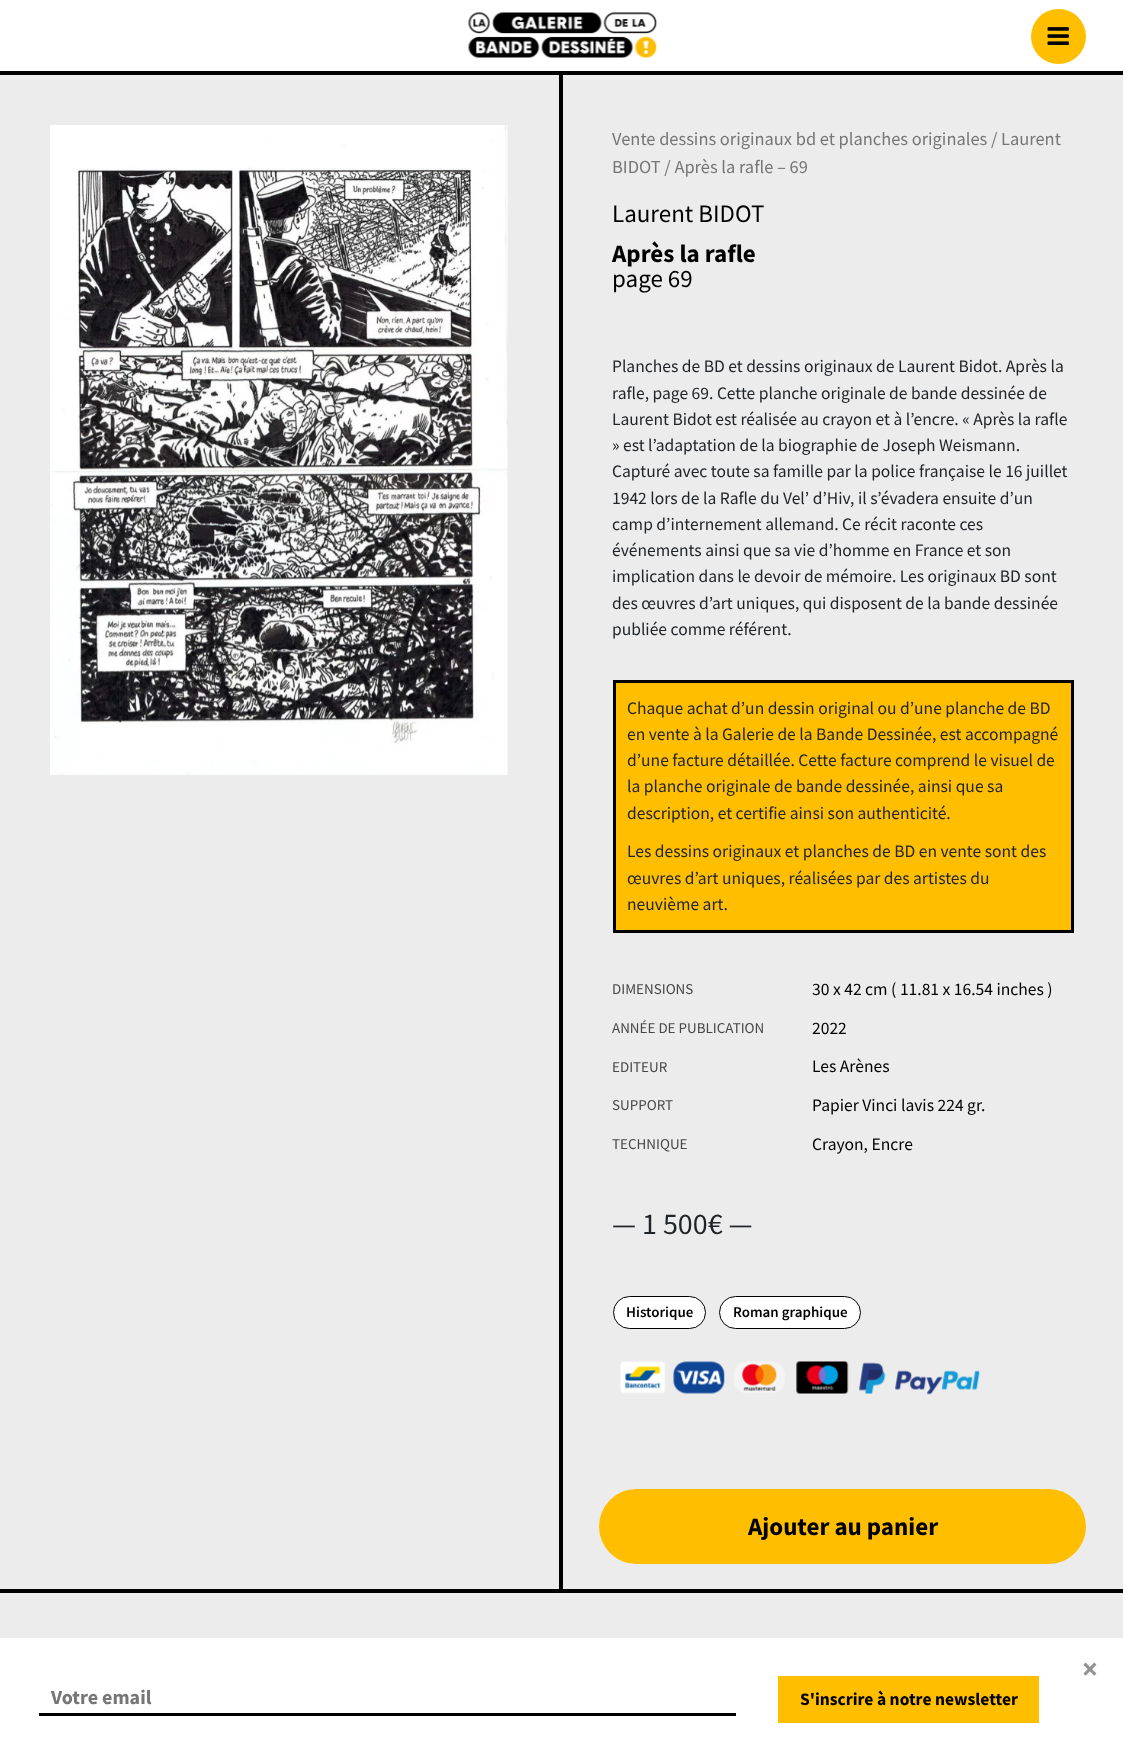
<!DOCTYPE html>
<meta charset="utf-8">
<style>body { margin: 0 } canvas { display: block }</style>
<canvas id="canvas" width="1123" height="1761"></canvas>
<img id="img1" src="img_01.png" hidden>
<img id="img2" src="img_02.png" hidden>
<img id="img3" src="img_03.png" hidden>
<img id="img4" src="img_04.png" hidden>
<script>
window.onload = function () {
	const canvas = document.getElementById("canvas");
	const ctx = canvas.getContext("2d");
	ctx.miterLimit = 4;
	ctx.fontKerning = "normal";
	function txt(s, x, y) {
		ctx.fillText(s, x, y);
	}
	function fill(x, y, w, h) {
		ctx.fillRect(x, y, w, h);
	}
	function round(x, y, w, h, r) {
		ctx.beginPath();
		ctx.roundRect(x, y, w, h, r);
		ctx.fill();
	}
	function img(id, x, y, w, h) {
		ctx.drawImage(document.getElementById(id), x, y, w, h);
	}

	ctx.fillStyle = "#ECECEC";
	fill(0, 0, 1123, 1761);
	ctx.fillStyle = "#FFFFFF";
	fill(0, 0, 1123, 71);
	ctx.fillStyle = "#000000";
	fill(0, 71, 1123, 4);
	img("img1", 468, 12, 189, 46);
	ctx.fillStyle = "#FFBE00";
	ctx.beginPath();
	ctx.arc(1058.5, 36.5, 27.5, 0, Math.PI * 2);
	ctx.fill();
	img("img2", 1047, 27, 22, 18);
	ctx.fillStyle = "#000000";
	fill(559, 75, 4, 1518);
	fill(0, 1589, 1123, 4);
	img("img3", 50, 125, 458, 650);
	ctx.fillStyle = "#FFBE00";
	ctx.beginPath();
	ctx.rect(614.5, 681.5, 458, 250);
	ctx.fill();
	ctx.strokeStyle = "#000000";
	ctx.lineWidth = 3;
	ctx.stroke();
	ctx.fillStyle = "#FFFFFF";
	ctx.beginPath();
	ctx.roundRect(613.5, 1296.5, 92, 32, 16);
	ctx.fill();
	ctx.lineWidth = 1;
	ctx.stroke();
	ctx.beginPath();
	ctx.roundRect(719.5, 1296.5, 141, 32, 16);
	ctx.fill();
	ctx.stroke();
	img("img4", 620, 1361, 360, 34);
	ctx.fillStyle = "#FFBE00";
	round(599, 1489, 487, 75, 37.5);
	ctx.fillStyle = "#FFFFFF";
	fill(0, 1638, 1123, 123);
	ctx.fillStyle = "#000000";
	fill(39, 1713, 697, 3);
	ctx.fillStyle = "#FFBE00";
	fill(778, 1676, 261, 47);
	ctx.font = "18.4px Source Sans Pro";
	ctx.fillStyle = "#767676";
	txt("Vente dessins originaux bd et planches originales / Laurent", 612, 145);
	txt("BIDOT / Après la rafle – 69", 612, 173);
	ctx.font = "25px Source Sans Pro";
	ctx.fillStyle = "#000000";
	txt("Laurent BIDOT", 612, 222);
	ctx.font = "bold 25px Source Sans Pro";
	txt("Après la rafle", 612, 262);
	ctx.font = "25px Source Sans Pro";
	txt("page 69", 612, 287);
	ctx.font = "17.5px Source Sans Pro";
	ctx.fillStyle = "#212529";
	txt("Planches de BD et dessins originaux de Laurent Bidot. Après la", 612, 372);
	txt("rafle, page 69. Cette planche originale de bande dessinée de", 612, 399);
	txt("Laurent Bidot est réalisée au crayon et à l’encre. « Après la rafle", 612, 425);
	txt("» est l’adaptation de la biographie de Joseph Weismann.", 612, 451);
	txt("Capturé avec toute sa famille par la police française le 16 juillet", 612, 477);
	txt("1942 lors de la Rafle du Vel’ d’Hiv, il s’évadera ensuite d’un", 612, 504);
	txt("camp d’internement allemand. Ce récit raconte ces", 612, 530);
	txt("événements ainsi que sa vie d’homme en France et son", 612, 556);
	txt("implication dans le devoir de mémoire. Les originaux BD sont", 612, 582);
	txt("des œuvres d’art uniques, qui disposent de la bande dessinée", 612, 609);
	txt("publiée comme référent.", 612, 635);
	txt("Chaque achat d’un dessin original ou d’une planche de BD", 627, 714);
	txt("en vente à la Galerie de la Bande Dessinée, est accompagné", 627, 740);
	txt("d’une facture détaillée. Cette facture comprend le visuel de", 627, 766);
	txt("la planche originale de bande dessinée, ainsi que sa", 627, 792);
	txt("description, et certifie ainsi son authenticité.", 627, 819);
	txt("Les dessins originaux et planches de BD en vente sont des", 627, 857);
	txt("œuvres d’art uniques, réalisées par des artistes du", 627, 884);
	txt("neuvième art.", 627, 910);
	ctx.font = "15px Source Sans Pro";
	ctx.fillStyle = "#474747";
	txt("DIMENSIONS", 612, 994);
	ctx.font = "17.5px Source Sans Pro";
	ctx.fillStyle = "#000000";
	txt("30 x 42 cm ( 11.81 x 16.54 inches )", 812, 995);
	ctx.font = "15px Source Sans Pro";
	ctx.fillStyle = "#474747";
	txt("ANNÉE DE PUBLICATION", 612, 1033);
	ctx.font = "17.5px Source Sans Pro";
	ctx.fillStyle = "#000000";
	txt("2022", 812, 1034);
	ctx.font = "15px Source Sans Pro";
	ctx.fillStyle = "#474747";
	txt("EDITEUR", 612, 1072);
	ctx.font = "17.5px Source Sans Pro";
	ctx.fillStyle = "#000000";
	txt("Les Arènes", 812, 1072);
	ctx.font = "15px Source Sans Pro";
	ctx.fillStyle = "#474747";
	txt("SUPPORT", 612, 1110);
	ctx.font = "17.5px Source Sans Pro";
	ctx.fillStyle = "#000000";
	txt("Papier Vinci lavis 224 gr.", 812, 1111);
	ctx.font = "15px Source Sans Pro";
	ctx.fillStyle = "#474747";
	txt("TECHNIQUE", 612, 1149);
	ctx.font = "17.5px Source Sans Pro";
	ctx.fillStyle = "#000000";
	txt("Crayon, Encre", 812, 1150);
	ctx.font = "30px Source Sans Pro";
	ctx.fillStyle = "#212529";
	txt("— 1 500€ —", 612, 1234);
	ctx.font = "600 15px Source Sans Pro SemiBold";
	ctx.fillStyle = "#000000";
	txt("Historique", 626, 1317);
	txt("Roman graphique", 733, 1317);
	ctx.font = "bold 25px Source Sans Pro";
	txt("Ajouter au panier", 748, 1535);
	ctx.font = "bold 30px Source Sans Pro";
	ctx.fillStyle = "#909294";
	txt("×", 1082, 1679);
	ctx.font = "bold 20px Source Sans Pro";
	ctx.fillStyle = "#767676";
	txt("Votre email", 51, 1704);
	ctx.font = "bold 17.5px Source Sans Pro";
	ctx.fillStyle = "#000000";
	txt("S'inscrire à notre newsletter", 800, 1705);
};
</script>
